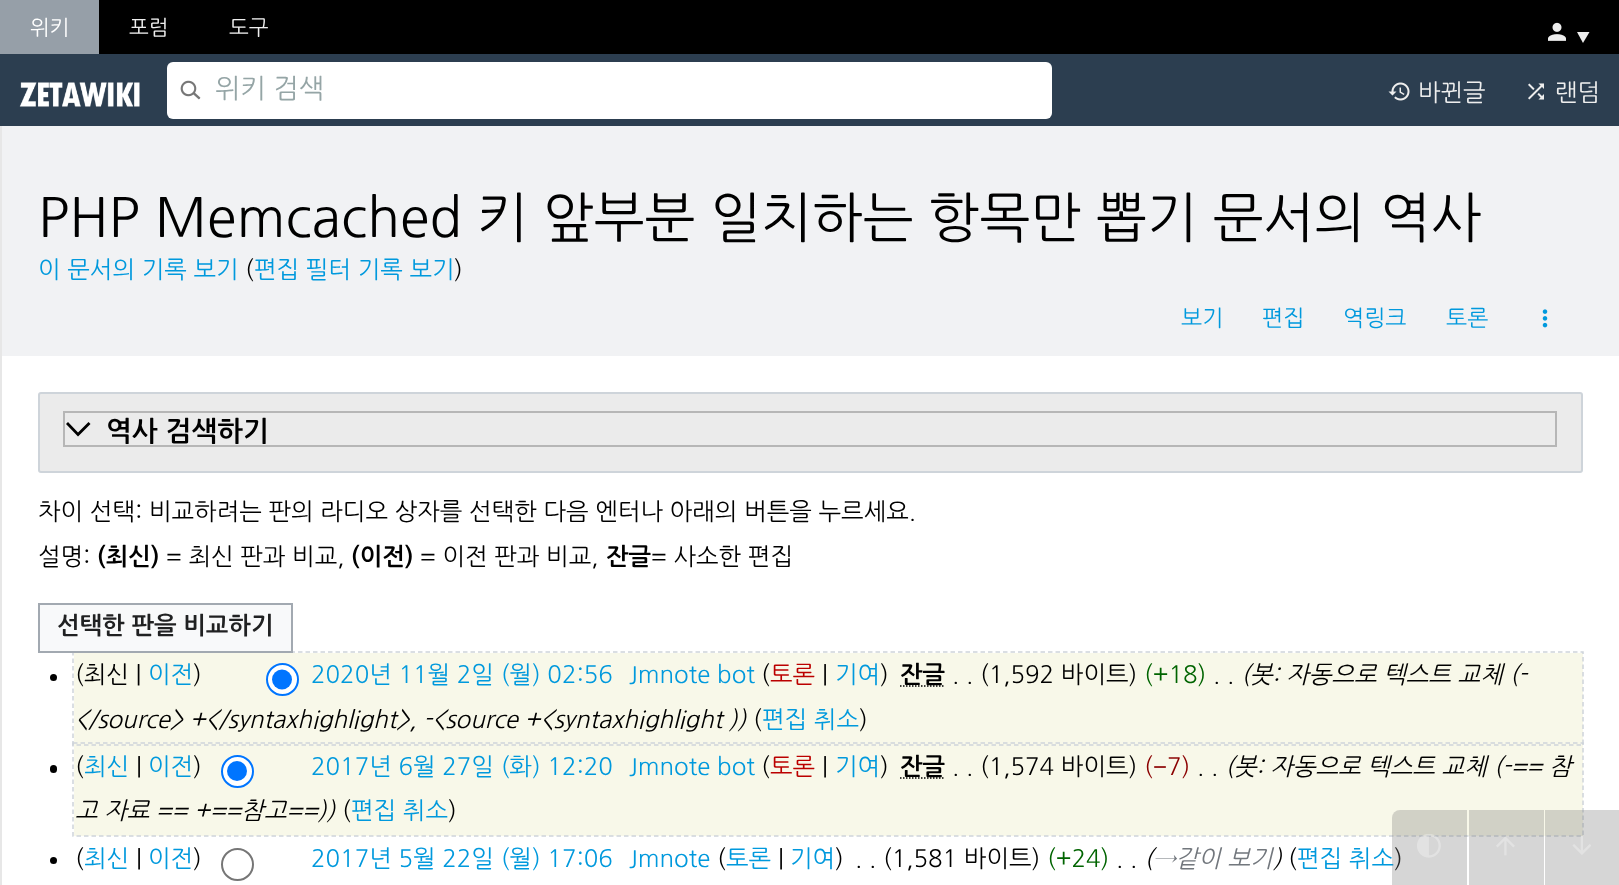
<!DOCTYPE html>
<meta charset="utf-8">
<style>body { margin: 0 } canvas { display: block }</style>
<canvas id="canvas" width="1619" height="885"></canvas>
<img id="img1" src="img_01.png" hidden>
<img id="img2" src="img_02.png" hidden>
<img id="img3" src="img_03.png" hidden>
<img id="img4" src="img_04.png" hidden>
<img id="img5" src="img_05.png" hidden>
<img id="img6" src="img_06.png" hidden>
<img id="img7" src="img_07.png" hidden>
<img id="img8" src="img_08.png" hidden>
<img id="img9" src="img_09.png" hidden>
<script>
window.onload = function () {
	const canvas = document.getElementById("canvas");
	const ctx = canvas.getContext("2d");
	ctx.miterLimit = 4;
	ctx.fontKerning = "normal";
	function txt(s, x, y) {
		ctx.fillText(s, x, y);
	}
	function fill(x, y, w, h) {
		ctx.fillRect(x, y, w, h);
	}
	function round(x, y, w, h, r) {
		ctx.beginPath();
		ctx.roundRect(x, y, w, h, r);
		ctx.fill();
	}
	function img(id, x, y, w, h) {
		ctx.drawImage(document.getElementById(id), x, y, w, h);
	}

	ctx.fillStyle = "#FFFFFF";
	fill(0, 0, 1619, 885);
	ctx.fillStyle = "#000000";
	fill(99, 0, 1520, 54);
	ctx.fillStyle = "#969FA8";
	fill(0, 0, 99, 54);
	img("img1", 1548, 22, 18, 19);
	ctx.fillStyle = "#EEEEEE";
	ctx.beginPath();
	ctx.moveTo(1577, 32);
	ctx.lineTo(1589.5, 32);
	ctx.lineTo(1583, 43);
	ctx.closePath();
	ctx.fill();
	ctx.fillStyle = "#2C3E50";
	fill(0, 54, 1619, 72);
	img("img2", 19, 82, 121, 25);
	ctx.fillStyle = "#FFFFFF";
	round(167, 62, 885, 57, 6);
	img("img3", 180, 80, 21, 20);
	img("img4", 1388, 82, 22, 19);
	img("img5", 1528, 83, 16, 17);
	ctx.fillStyle = "#E7E7E7";
	fill(0, 126, 2, 759);
	ctx.fillStyle = "#F1F2F4";
	fill(2, 126, 1617, 230);
	img("img6", 1542, 309, 6, 19);
	ctx.fillStyle = "#EBEBEB";
	ctx.beginPath();
	ctx.roundRect(39, 393, 1543, 79, 2);
	ctx.fill();
	ctx.strokeStyle = "#CED4DA";
	ctx.lineWidth = 2;
	ctx.stroke();
	ctx.strokeStyle = "#B6B6B6";
	ctx.strokeRect(64, 412, 1492, 34);
	ctx.fillStyle = "#000000";
	ctx.beginPath();
	ctx.moveTo(88.5, 422);
	ctx.lineTo(78, 432.5);
	ctx.lineTo(68, 422);
	ctx.lineTo(66, 424);
	ctx.lineTo(78, 436.5);
	ctx.lineTo(90.5, 424);
	ctx.closePath();
	ctx.fill();
	ctx.fillStyle = "#F8F8E9";
	fill(74, 653, 1509, 183);
	ctx.fillStyle = "#000000";
	ctx.beginPath();
	ctx.arc(53.5, 677.5, 3.5, 0, Math.PI * 2);
	ctx.fill();
	ctx.fillStyle = "#FFFFFF";
	ctx.beginPath();
	ctx.arc(282.5, 679.5, 15.5, 0, Math.PI * 2);
	ctx.fill();
	ctx.strokeStyle = "#0075FF";
	ctx.stroke();
	ctx.fillStyle = "#0075FF";
	ctx.beginPath();
	ctx.arc(282, 679.5, 10, 0, Math.PI * 2);
	ctx.fill();
	ctx.beginPath();
	ctx.moveTo(900, 686);
	ctx.lineTo(945, 686);
	ctx.strokeStyle = "#000000";
	ctx.lineWidth = 1.5;
	ctx.setLineDash([1.5, 1.5]);
	ctx.stroke();
	ctx.fillStyle = "#000000";
	round(50, 765, 7, 8, 3.5);
	ctx.fillStyle = "#FFFFFF";
	ctx.beginPath();
	ctx.arc(237.5, 771.5, 15.5, 0, Math.PI * 2);
	ctx.fill();
	ctx.strokeStyle = "#0075FF";
	ctx.lineWidth = 2;
	ctx.setLineDash([]);
	ctx.stroke();
	ctx.fillStyle = "#0075FF";
	ctx.beginPath();
	ctx.arc(237, 771, 10, 0, Math.PI * 2);
	ctx.fill();
	ctx.beginPath();
	ctx.moveTo(900, 778);
	ctx.lineTo(945, 778);
	ctx.strokeStyle = "#000000";
	ctx.lineWidth = 1.5;
	ctx.setLineDash([1.5, 1.5]);
	ctx.stroke();
	ctx.fillStyle = "#000000";
	ctx.beginPath();
	ctx.arc(53.5, 860.5, 3.5, 0, Math.PI * 2);
	ctx.fill();
	ctx.beginPath();
	ctx.arc(237.5, 864.5, 15.5, 0, Math.PI * 2);
	ctx.strokeStyle = "#767676";
	ctx.lineWidth = 2;
	ctx.setLineDash([]);
	ctx.stroke();
	ctx.font = "21px NanumGothic";
	ctx.fillStyle = "#FFFFFF";
	txt("위키", 30, 35);
	ctx.fillStyle = "#EEEEEE";
	txt("포럼", 129, 35);
	txt("도구", 229, 35);
	ctx.font = "27px NanumGothic";
	ctx.fillStyle = "#95A5A6";
	txt("위키 검색", 215, 98);
	ctx.font = "24px NanumGothic";
	ctx.fillStyle = "#EEEEEE";
	txt("바뀐글", 1418, 101);
	txt("랜덤", 1555, 101);
	ctx.font = "54px NanumGothic";
	ctx.fillStyle = "#000000";
	txt("PHP Memcached 키 앞부분 일치하는 항목만 뽑기 문서의 역사", 38, 237);
	ctx.font = "24px NanumGothic";
	ctx.fillStyle = "#0099DD";
	txt("이 문서의 기록 보기", 38, 278);
	ctx.fillStyle = "#000000";
	txt("(", 245, 278);
	ctx.fillStyle = "#0099DD";
	txt("편집 필터 기록 보기", 254, 278);
	ctx.fillStyle = "#000000";
	txt(")", 454, 278);
	ctx.font = "22.5px NanumGothic";
	ctx.fillStyle = "#0099DD";
	txt("보기", 1181, 326);
	txt("편집", 1262, 326);
	txt("역링크", 1343, 326);
	txt("토론", 1446, 326);
	ctx.font = "bold 27.5px NanumGothic";
	ctx.fillStyle = "#000000";
	txt("역사 검색하기", 106, 441);
	ctx.font = "24px NanumGothic";
	txt("차이 선택: 비교하려는 판의 라디오 상자를 선택한 다음 엔터나 아래의 버튼을 누르세요.", 38, 520);
	txt("설명:", 38, 565);
	ctx.font = "bold 24px NanumGothic";
	txt("(최신)", 97, 565);
	ctx.font = "24px NanumGothic";
	txt("= 최신 판과 비교,", 166, 565);
	ctx.font = "bold 24px NanumGothic";
	txt("(이전)", 351, 565);
	ctx.font = "24px NanumGothic";
	txt("= 이전 판과 비교,", 420, 565);
	ctx.font = "bold 24px NanumGothic";
	txt("잔글", 606, 565);
	ctx.font = "24px NanumGothic";
	txt("= 사소한 편집", 651, 565);
	txt("(최신 |", 75, 683);
	ctx.fillStyle = "#0099DD";
	txt("이전", 148, 683);
	ctx.fillStyle = "#000000";
	txt(")", 193, 683);
	ctx.fillStyle = "#0099DD";
	txt("2020년 11월 2일 (월) 02:56", 311, 683);
	txt("Jmnote bot", 629, 683);
	ctx.fillStyle = "#000000";
	txt("(", 761, 683);
	ctx.fillStyle = "#BB0000";
	txt("토론", 770, 683);
	ctx.fillStyle = "#000000";
	txt("|", 822, 683);
	ctx.fillStyle = "#0099DD";
	txt("기여", 835, 683);
	ctx.fillStyle = "#000000";
	txt(")", 880, 683);
	ctx.font = "bold 24px NanumGothic";
	txt("잔글", 900, 683);
	ctx.font = "24px NanumGothic";
	txt(". . (1,592 바이트)", 952, 683);
	ctx.fillStyle = "#006400";
	txt("(+18)", 1144, 683);
	ctx.font = "italic 24px NanumGothic";
	ctx.fillStyle = "#000000";
	txt("(봇: 자동으로 텍스트 교체 (-", 1241, 683);
	ctx.font = "24px NanumGothic";
	txt(". .", 1213, 683);
	ctx.font = "italic 24px NanumGothic";
	txt("<\/source> +<\/syntaxhighlight>, -<source +<syntaxhighlight ))", 75, 728);
	ctx.font = "24px NanumGothic";
	txt("(", 753, 728);
	ctx.fillStyle = "#0099DD";
	txt("편집 취소", 762, 728);
	ctx.fillStyle = "#000000";
	txt(")", 859, 728);
	ctx.beginPath();
	ctx.moveTo(73, 652);
	ctx.lineTo(1583, 652);
	ctx.lineTo(1583, 745);
	ctx.lineTo(73, 745);
	ctx.closePath();
	ctx.strokeStyle = "#CED4DA";
	ctx.lineWidth = 1.5;
	ctx.setLineDash([4.5, 3]);
	ctx.stroke();
	ctx.fillStyle = "#F8F9FA";
	ctx.beginPath();
	ctx.rect(39, 604, 253, 48);
	ctx.fill();
	ctx.strokeStyle = "#A2A9B1";
	ctx.lineWidth = 2;
	ctx.setLineDash([]);
	ctx.stroke();
	ctx.font = "bold 24px NanumGothic";
	ctx.fillStyle = "#202122";
	txt("선택한 판을 비교하기", 57, 634);
	ctx.font = "24px NanumGothic";
	ctx.fillStyle = "#000000";
	txt("(", 75, 775);
	ctx.fillStyle = "#0099DD";
	txt("최신", 84, 775);
	ctx.fillStyle = "#000000";
	txt("|", 136, 775);
	ctx.fillStyle = "#0099DD";
	txt("이전", 148, 775);
	ctx.fillStyle = "#000000";
	txt(")", 193, 775);
	ctx.fillStyle = "#0099DD";
	txt("2017년 6월 27일 (화) 12:20", 311, 775);
	txt("Jmnote bot", 629, 775);
	ctx.fillStyle = "#000000";
	txt("(", 761, 775);
	ctx.fillStyle = "#BB0000";
	txt("토론", 770, 775);
	ctx.fillStyle = "#000000";
	txt("|", 822, 775);
	ctx.fillStyle = "#0099DD";
	txt("기여", 835, 775);
	ctx.fillStyle = "#000000";
	txt(")", 880, 775);
	ctx.font = "bold 24px NanumGothic";
	txt("잔글", 900, 775);
	ctx.font = "24px NanumGothic";
	txt(". . (1,574 바이트)", 952, 775);
	ctx.fillStyle = "#8B0000";
	txt("(", 1144, 775);
	ctx.font = "24px Liberation Sans";
	txt("−", 1153, 775);
	ctx.font = "24px NanumGothic";
	txt("7)", 1167, 775);
	ctx.font = "italic 24px NanumGothic";
	ctx.fillStyle = "#000000";
	txt("(봇: 자동으로 텍스트 교체 (-== 참", 1225, 775);
	ctx.font = "24px NanumGothic";
	txt(". .", 1197, 775);
	ctx.font = "italic 24px NanumGothic";
	txt("고 자료 == +==참고==))", 75, 819);
	ctx.font = "24px NanumGothic";
	txt("(", 342, 819);
	ctx.fillStyle = "#0099DD";
	txt("편집 취소", 351, 819);
	ctx.fillStyle = "#000000";
	txt(")", 448, 819);
	ctx.beginPath();
	ctx.moveTo(73, 743);
	ctx.lineTo(1583, 743);
	ctx.lineTo(1583, 836);
	ctx.lineTo(73, 836);
	ctx.closePath();
	ctx.strokeStyle = "#CED4DA";
	ctx.lineWidth = 1.5;
	ctx.setLineDash([4.5, 3]);
	ctx.stroke();
	txt("(", 75, 867);
	ctx.fillStyle = "#0099DD";
	txt("최신", 84, 867);
	ctx.fillStyle = "#000000";
	txt("|", 136, 867);
	ctx.fillStyle = "#0099DD";
	txt("이전", 148, 867);
	ctx.fillStyle = "#000000";
	txt(")", 193, 867);
	ctx.fillStyle = "#0099DD";
	txt("2017년 5월 22일 (월) 17:06", 311, 867);
	txt("Jmnote", 629, 867);
	ctx.fillStyle = "#000000";
	txt("(", 717, 867);
	ctx.fillStyle = "#0099DD";
	txt("토론", 726, 867);
	ctx.fillStyle = "#000000";
	txt("|", 778, 867);
	ctx.fillStyle = "#0099DD";
	txt("기여", 790, 867);
	ctx.fillStyle = "#000000";
	txt(")", 835, 867);
	txt(". . (1,581 바이트)", 855, 867);
	ctx.fillStyle = "#006400";
	txt("(+24)", 1047, 867);
	ctx.font = "italic 24px NanumGothic";
	ctx.fillStyle = "#000000";
	txt("(", 1144, 867);
	ctx.fillStyle = "#72777D";
	txt("→같이 보기", 1153, 867);
	ctx.fillStyle = "#000000";
	txt(")", 1273, 867);
	ctx.font = "24px NanumGothic";
	txt("(", 1288, 867);
	ctx.fillStyle = "#0099DD";
	txt("편집 취소", 1297, 867);
	ctx.fillStyle = "#000000";
	txt(")", 1394, 867);
	txt(". .", 1116, 867);
	ctx.fillStyle = "rgba(119, 119, 119, 0.3)";
	ctx.beginPath();
	ctx.roundRect(1392, 810, 75, 75, [8, 0, 0, 0]);
	ctx.fill();
	img("img7", 1417, 834, 24, 24);
	fill(1469, 810, 75, 75);
	img("img8", 1496, 836, 19, 20);
	fill(1545, 810, 74, 75);
	img("img9", 1572, 836, 19, 19);
};
</script>
